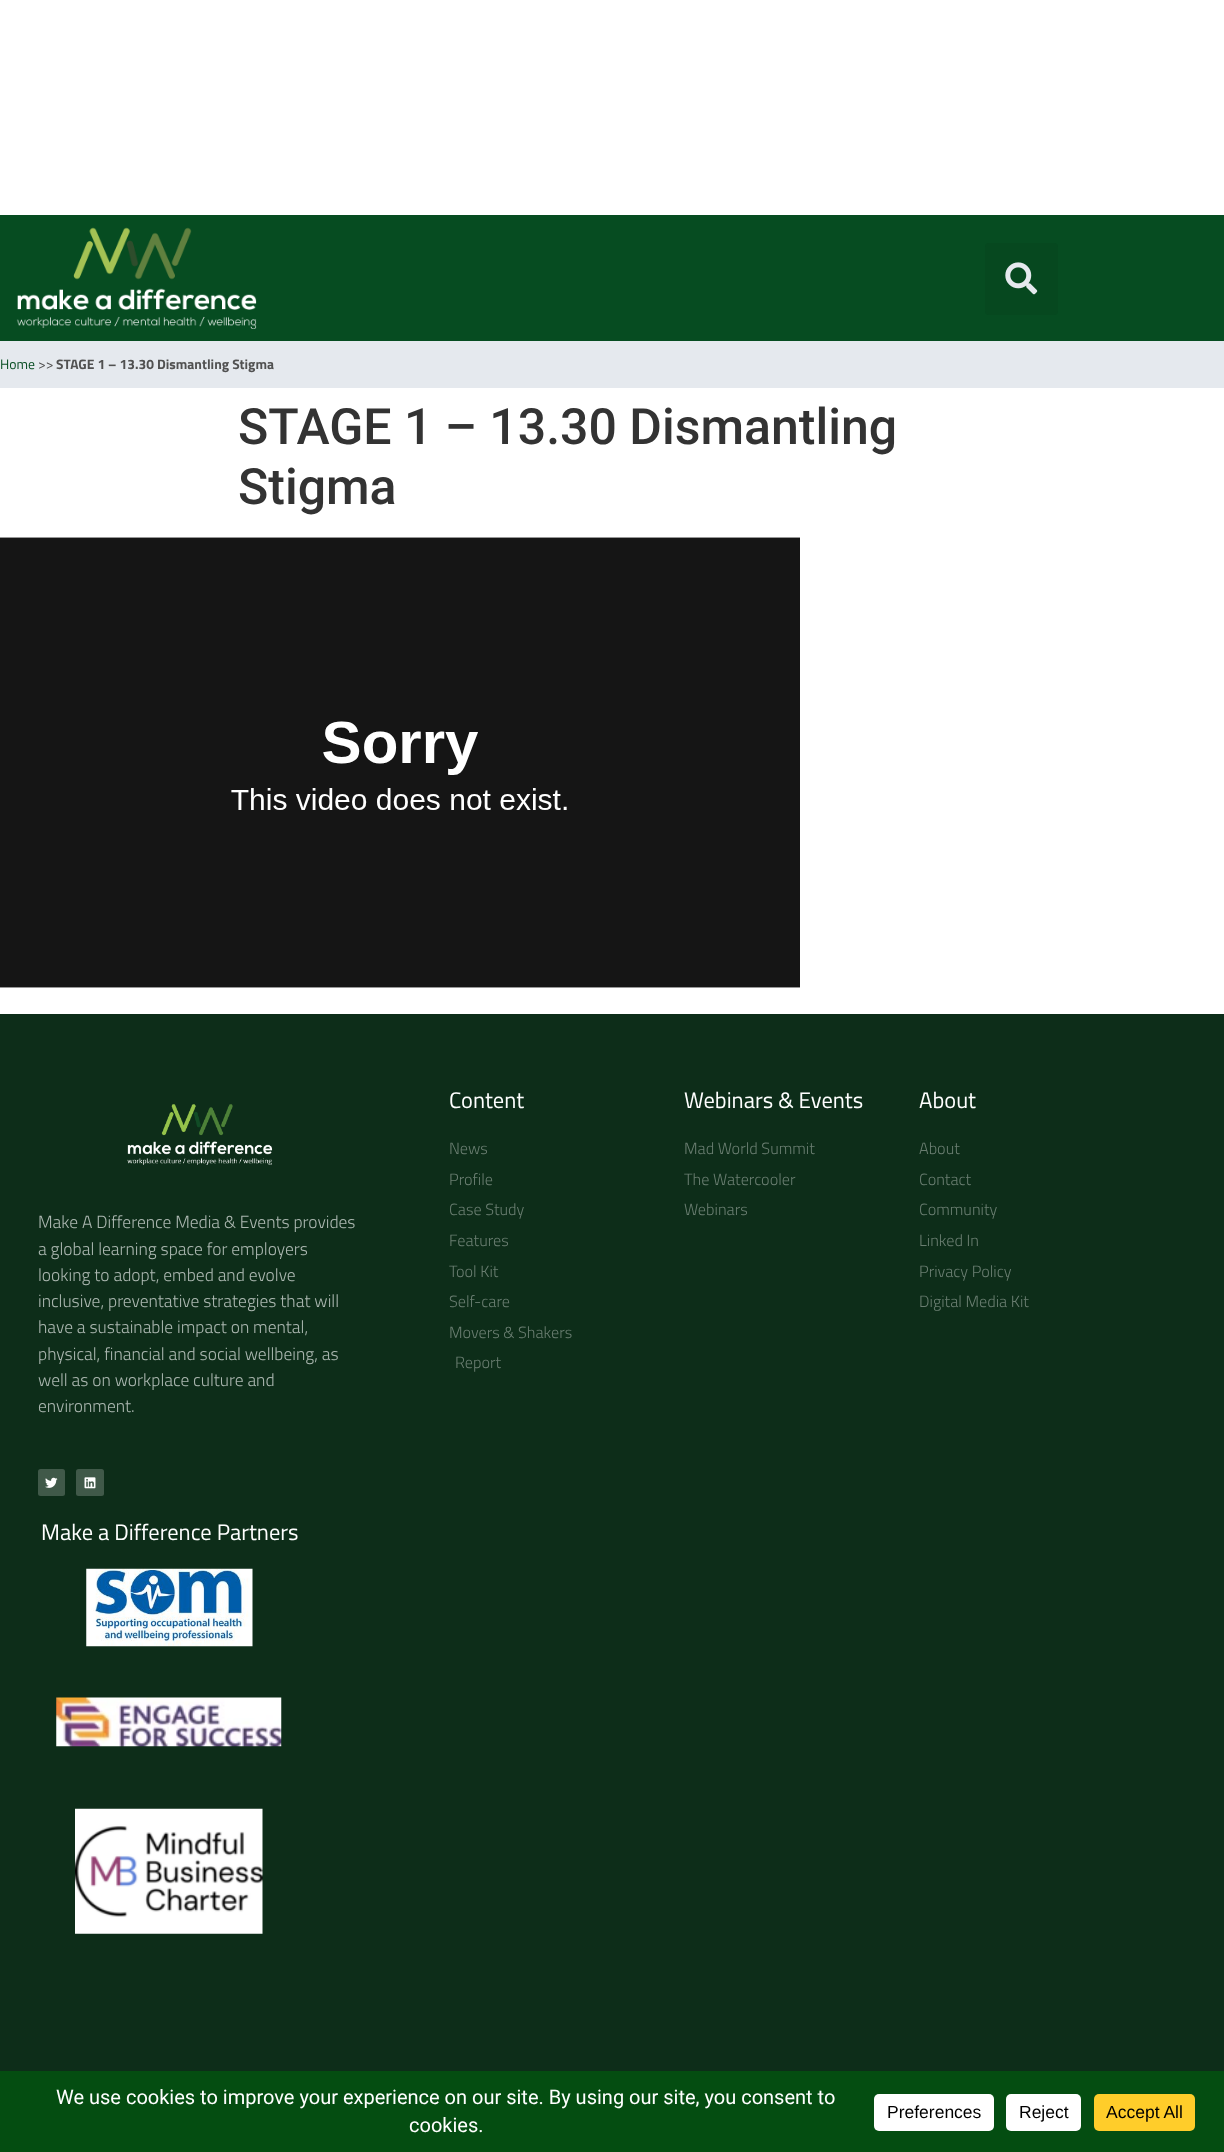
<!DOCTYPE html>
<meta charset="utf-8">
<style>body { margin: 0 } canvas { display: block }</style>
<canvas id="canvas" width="1224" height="2152"></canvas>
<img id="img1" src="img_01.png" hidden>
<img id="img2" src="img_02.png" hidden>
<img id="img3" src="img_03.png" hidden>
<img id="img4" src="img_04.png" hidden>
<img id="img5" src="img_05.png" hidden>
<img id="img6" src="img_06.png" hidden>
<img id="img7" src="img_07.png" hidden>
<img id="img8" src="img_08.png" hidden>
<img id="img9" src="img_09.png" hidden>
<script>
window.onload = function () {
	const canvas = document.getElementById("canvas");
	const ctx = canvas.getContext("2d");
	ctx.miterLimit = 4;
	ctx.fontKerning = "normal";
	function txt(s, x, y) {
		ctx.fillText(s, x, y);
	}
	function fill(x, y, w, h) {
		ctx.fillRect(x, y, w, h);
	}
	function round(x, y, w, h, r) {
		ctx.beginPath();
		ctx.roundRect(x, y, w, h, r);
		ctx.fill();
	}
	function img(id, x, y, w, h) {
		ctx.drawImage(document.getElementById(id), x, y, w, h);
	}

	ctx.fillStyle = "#FFFFFF";
	fill(0, 0, 1224, 2152);
	ctx.fillStyle = "#064C21";
	fill(0, 215, 1224, 126);
	img("img1", 16, 227, 241, 102);
	ctx.fillStyle = "#06481F";
	round(985, 243, 73, 72, 4);
	img("img2", 1005, 262, 33, 33);
	ctx.fillStyle = "#E5E9EE";
	fill(0, 341, 1224, 47);
	img("img3", 0, 537, 800, 451);
	ctx.fillStyle = "#0D2D19";
	fill(0, 1014, 1224, 1057);
	img("img4", 127, 1104, 146, 61);
	ctx.fillStyle = "#405949";
	round(38, 1469, 27, 27, 2.5);
	img("img5", 45, 1477, 13, 11);
	round(76, 1469, 28, 27, 2.5);
	img("img6", 84, 1477, 12, 12);
	img("img7", 86, 1568, 167, 79);
	img("img8", 56, 1697, 226, 50);
	img("img9", 75, 1808, 188, 126);
	ctx.fillStyle = "#044D11";
	fill(0, 2071, 1224, 81);
	ctx.fillStyle = "#FFFFFF";
	round(874, 2094, 120, 37, 5);
	round(1006, 2094, 75, 37, 5);
	ctx.fillStyle = "#FFCD2A";
	round(1094, 2094, 101, 37, 5);
	ctx.font = "13.75px Titillium Web";
	ctx.fillStyle = "#064C21";
	txt("Home", 0, 369);
	ctx.fillStyle = "#515151";
	txt(">>", 38, 369);
	ctx.font = "bold 13.75px Titillium Web";
	txt("STAGE 1 – 13.30 Dismantling Stigma", 56, 369);
	ctx.font = "500 50px Roboto";
	ctx.fillStyle = "#333333";
	txt("STAGE 1 – 13.30 Dismantling", 238, 444);
	txt("Stigma", 238, 504);
	ctx.font = "300 17.5px Titillium Web";
	ctx.fillStyle = "#AAB6AF";
	txt("Make A Difference Media & Events provides", 38, 1228);
	txt("a global learning space for employers", 38, 1255);
	txt("looking to adopt, embed and evolve", 38, 1281);
	txt("inclusive, preventative strategies that will", 38, 1307);
	txt("have a sustainable impact on mental,", 38, 1333);
	txt("physical, financial and social wellbeing, as", 38, 1360);
	txt("well as on workplace culture and", 38, 1386);
	txt("environment.", 38, 1412);
	ctx.font = "22.5px Titillium Web";
	ctx.fillStyle = "#FFFFFF";
	txt("Content", 449, 1108);
	ctx.font = "300 16.25px Titillium Web";
	ctx.fillStyle = "#697D70";
	txt("News", 449, 1154);
	txt("Profile", 449, 1185);
	txt("Case Study", 449, 1215);
	txt("Features", 449, 1246);
	txt("Tool Kit", 449, 1277);
	txt("Self-care", 449, 1307);
	txt("Movers & Shakers", 449, 1338);
	txt("Report", 455, 1368);
	ctx.font = "22.5px Titillium Web";
	ctx.fillStyle = "#FFFFFF";
	txt("Webinars & Events", 684, 1108);
	ctx.font = "300 16.25px Titillium Web";
	ctx.fillStyle = "#697D70";
	txt("Mad World Summit", 684, 1154);
	txt("The Watercooler", 684, 1185);
	txt("Webinars", 684, 1215);
	ctx.font = "22.5px Titillium Web";
	ctx.fillStyle = "#FFFFFF";
	txt("About", 919, 1108);
	ctx.font = "300 16.25px Titillium Web";
	ctx.fillStyle = "#697D70";
	txt("About", 919, 1154);
	txt("Contact", 919, 1185);
	txt("Community", 919, 1215);
	txt("Linked In", 919, 1246);
	txt("Privacy Policy", 919, 1277);
	txt("Digital Media Kit", 919, 1307);
	ctx.font = "22.5px Titillium Web";
	ctx.fillStyle = "#FFFFFF";
	txt("Make a Difference Partners", 41, 1540);
	ctx.font = "20px Roboto";
	txt("We use cookies to improve your experience on our site. By using our site, you consent to", 56, 2104);
	txt("cookies.", 409, 2132);
	ctx.font = "17.5px Liberation Sans";
	ctx.fillStyle = "#000000";
	txt("Preferences", 887, 2118);
	txt("Reject", 1019, 2118);
	txt("Accept All", 1106, 2118);
};
</script>
